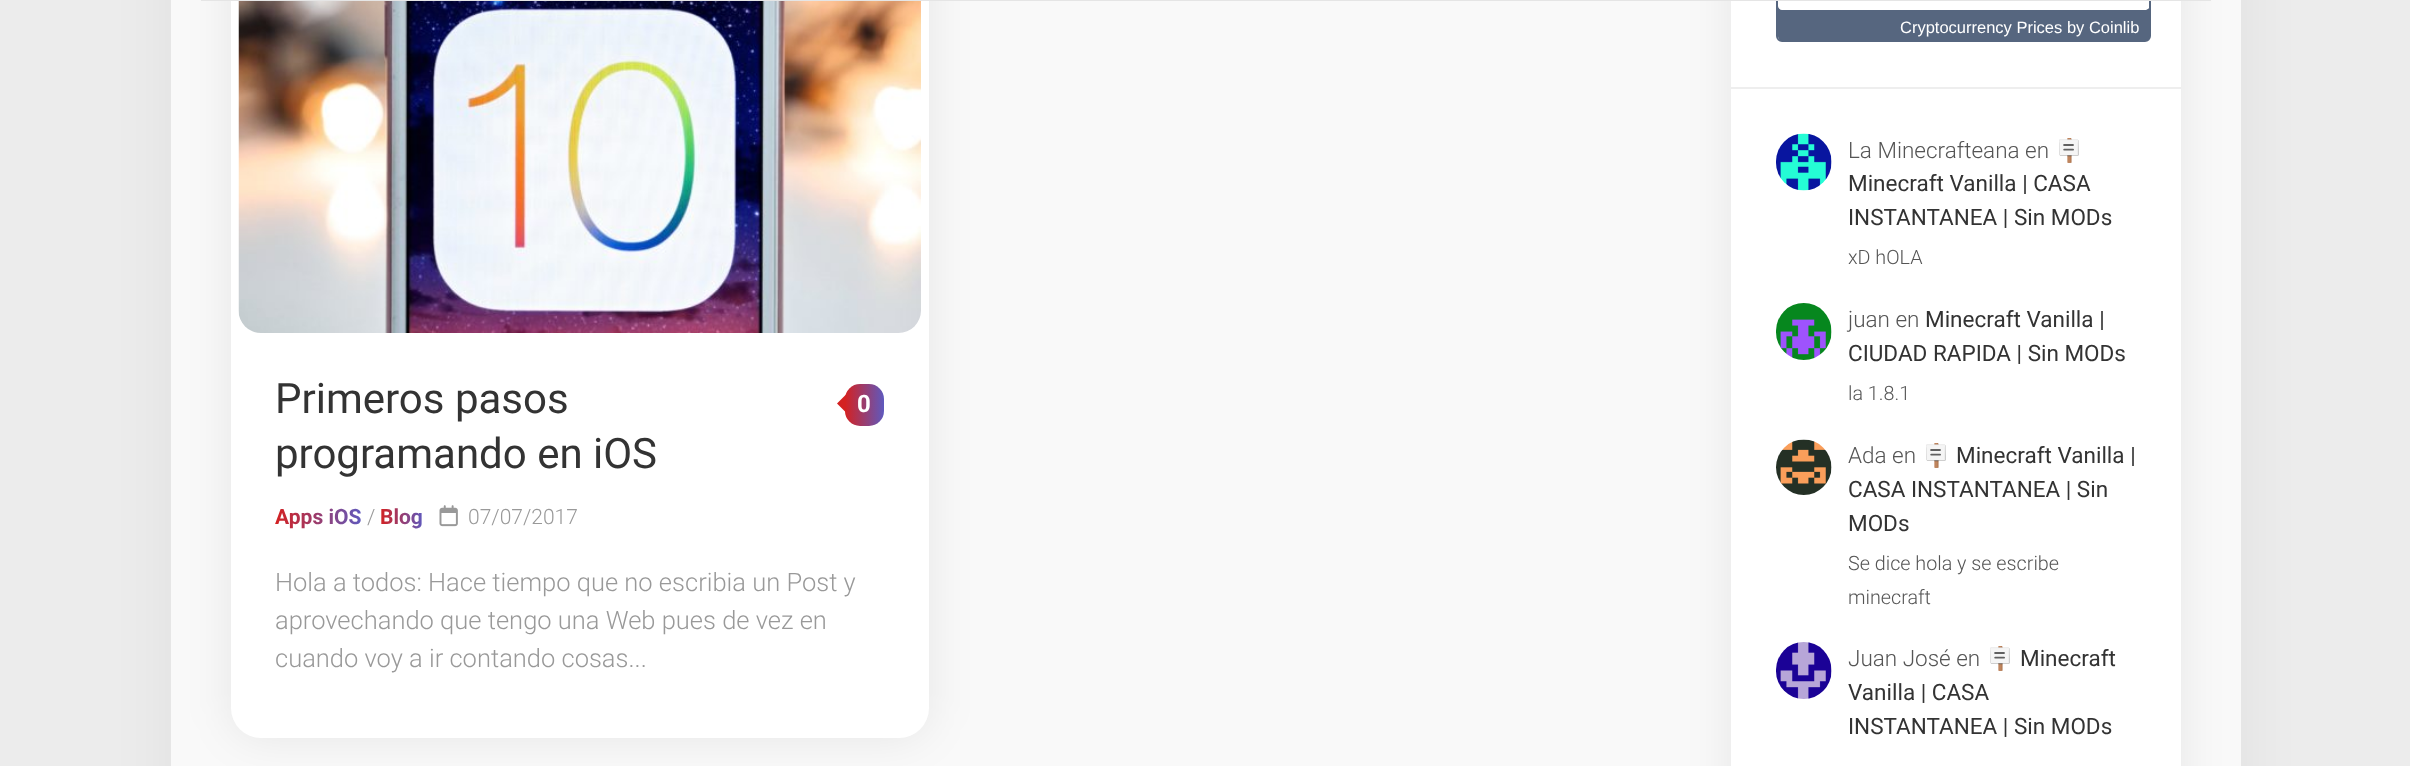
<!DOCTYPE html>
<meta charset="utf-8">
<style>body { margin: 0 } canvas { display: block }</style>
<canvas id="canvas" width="2410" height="766"></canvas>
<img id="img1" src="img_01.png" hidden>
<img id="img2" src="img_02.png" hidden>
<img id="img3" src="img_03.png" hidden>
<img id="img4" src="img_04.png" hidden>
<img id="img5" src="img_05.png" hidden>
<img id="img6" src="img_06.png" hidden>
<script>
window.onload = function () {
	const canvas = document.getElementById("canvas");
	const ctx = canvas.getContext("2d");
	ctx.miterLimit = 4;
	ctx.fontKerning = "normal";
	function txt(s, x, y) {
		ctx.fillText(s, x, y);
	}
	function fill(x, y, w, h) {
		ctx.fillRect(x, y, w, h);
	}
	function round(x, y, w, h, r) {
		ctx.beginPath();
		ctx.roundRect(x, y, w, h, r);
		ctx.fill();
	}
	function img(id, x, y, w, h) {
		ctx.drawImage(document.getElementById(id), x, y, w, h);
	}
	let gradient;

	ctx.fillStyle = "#ECECEC";
	fill(0, 0, 2410, 766);
	ctx.fillStyle = "rgba(0, 0, 0, 0.05)";
	ctx.filter = "blur(30px)";
	ctx.beginPath();
	ctx.roundRect(171, -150, 2070, 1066, 60);
	ctx.fill();
	ctx.filter = "none";
	ctx.fillStyle = "#F9F9F9";
	fill(171, 0, 2070, 766);
	ctx.fillStyle = "rgba(0, 0, 0, 0.08)";
	ctx.filter = "blur(22.5px)";
	ctx.beginPath();
	ctx.roundRect(231, -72, 698, 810, 30);
	ctx.fill();
	ctx.filter = "none";
	ctx.fillStyle = "#FFFFFF";
	round(231, -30, 698, 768, 30);
	ctx.fillStyle = "rgba(0, 0, 0, 0.08)";
	ctx.filter = "blur(22.5px)";
	ctx.beginPath();
	ctx.roundRect(1731, -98, 450, 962, 30);
	ctx.fill();
	ctx.filter = "none";
	ctx.fillStyle = "#FFFFFF";
	fill(1731, 1, 450, 765);
	ctx.fillStyle = "#56667F";
	ctx.beginPath();
	ctx.moveTo(1778, 6);
	ctx.lineTo(1778, 36);
	ctx.bezierCurveTo(1778, 39, 1780, 41, 1783, 41);
	ctx.lineTo(2145, 41);
	ctx.bezierCurveTo(2148, 41, 2150, 39, 2150, 36);
	ctx.lineTo(2150, 6);
	ctx.bezierCurveTo(2150, 8, 2147, 10, 2145, 10);
	ctx.lineTo(1782, 10);
	ctx.bezierCurveTo(1780, 10, 1778, 8, 1778, 6);
	ctx.closePath();
	ctx.fill();
	ctx.beginPath();
	ctx.roundRect(1777, -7, 373, 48, 5);
	ctx.strokeStyle = "#56667F";
	ctx.lineWidth = 2;
	ctx.stroke();
	ctx.fillStyle = "#E5E5E5";
	fill(201, 0, 2010, 1);
	img("img1", 238, 1, 683, 332);
	gradient = ctx.createLinearGradient(845, 405, 884, 405);
	gradient.addColorStop(0, "#D42121");
	gradient.addColorStop(1, "#5E59BE");
	ctx.fillStyle = gradient;
	round(845, 384, 39, 42, 15);
	ctx.fillStyle = "#D42121";
	ctx.beginPath();
	ctx.moveTo(846, 394.5);
	ctx.lineTo(846, 412.5);
	ctx.lineTo(837, 403.5);
	ctx.closePath();
	ctx.fill();
	img("img2", 439, 505, 19, 22);
	ctx.fillStyle = "#EEEEEE";
	fill(1731, 87, 450, 2);
	img("img3", 1776, 133, 56, 58);
	img("img4", 1776, 303, 56, 57);
	img("img5", 1776, 439, 56, 56);
	img("img6", 1776, 642, 56, 57);
	ctx.font = "42px Roboto";
	ctx.fillStyle = "#333333";
	txt("Primeros pasos", 275, 413);
	txt("programando en iOS", 275, 468);
	ctx.font = "bold 24px Roboto";
	ctx.fillStyle = "#FFFFFF";
	txt("0", 857, 412);
	ctx.font = "bold 21px Roboto";
	gradient = ctx.createLinearGradient(362, 517, 275, 517);
	gradient.addColorStop(0, "#5E59BE");
	gradient.addColorStop(1, "#D42121");
	ctx.fillStyle = gradient;
	txt("Apps iOS", 275, 524);
	ctx.font = "300 21px Roboto";
	ctx.fillStyle = "#999999";
	txt("/", 367, 524);
	ctx.font = "bold 21px Roboto";
	gradient = ctx.createLinearGradient(423, 517, 380, 517);
	gradient.addColorStop(0, "#5E59BE");
	gradient.addColorStop(1, "#D42121");
	ctx.fillStyle = gradient;
	txt("Blog", 380, 524);
	ctx.font = "300 21px Roboto";
	ctx.fillStyle = "#999999";
	txt("07/07/2017", 468, 524);
	ctx.font = "300 25.5px Roboto";
	txt("Hola a todos: Hace tiempo que no escribia un Post y", 275, 591);
	txt("aprovechando que tengo una Web pues de vez en", 275, 629);
	txt("cuando voy a ir contando cosas...", 275, 667);
	ctx.font = "16.5px Liberation Sans";
	ctx.fillStyle = "#FFFFFF";
	txt("Cryptocurrency Prices by Coinlib", 1900, 33);
	ctx.font = "300 22.5px Roboto";
	ctx.fillStyle = "#555555";
	txt("La Minecrafteana en", 1848, 158);
	ctx.font = "22.5px Noto Color Emoji";
	ctx.fillStyle = "#333333";
	txt("🪧", 2055, 158);
	ctx.font = "22.5px Roboto";
	txt("Minecraft Vanilla | CASA", 1848, 191);
	txt("INSTANTANEA | Sin MODs", 1848, 225);
	ctx.font = "300 19.75px Roboto";
	ctx.fillStyle = "#555555";
	txt("xD hOLA", 1848, 264);
	ctx.font = "300 22.5px Roboto";
	txt("juan en", 1848, 327);
	ctx.font = "22.5px Roboto";
	ctx.fillStyle = "#333333";
	txt("Minecraft Vanilla |", 1925, 327);
	txt("CIUDAD RAPIDA | Sin MODs", 1848, 361);
	ctx.font = "300 19.75px Roboto";
	ctx.fillStyle = "#555555";
	txt("la 1.8.1", 1848, 400);
	ctx.font = "300 22.5px Roboto";
	txt("Ada en", 1848, 463);
	ctx.font = "22.5px Noto Color Emoji";
	ctx.fillStyle = "#333333";
	txt("🪧", 1922, 463);
	ctx.font = "22.5px Roboto";
	txt("Minecraft Vanilla |", 1956, 463);
	txt("CASA INSTANTANEA | Sin", 1848, 497);
	txt("MODs", 1848, 531);
	ctx.font = "300 19.75px Roboto";
	ctx.fillStyle = "#555555";
	txt("Se dice hola y se escribe", 1848, 570);
	txt("minecraft", 1848, 604);
	ctx.font = "300 22.5px Roboto";
	txt("Juan José en", 1848, 666);
	ctx.font = "22.5px Noto Color Emoji";
	ctx.fillStyle = "#333333";
	txt("🪧", 1986, 666);
	ctx.font = "22.5px Roboto";
	txt("Minecraft", 2020, 666);
	txt("Vanilla | CASA", 1848, 700);
	txt("INSTANTANEA | Sin MODs", 1848, 734);
};
</script>
